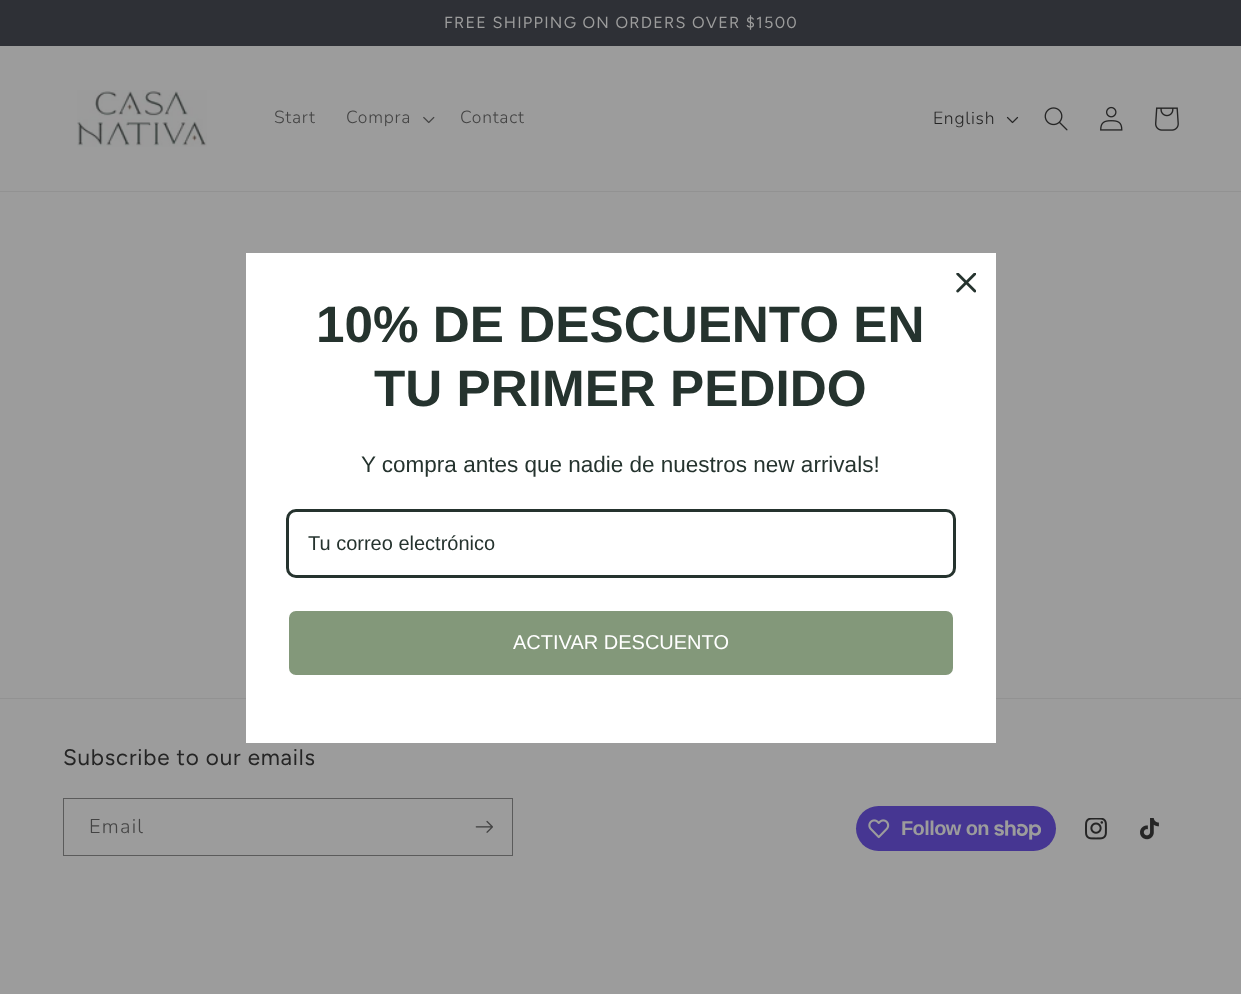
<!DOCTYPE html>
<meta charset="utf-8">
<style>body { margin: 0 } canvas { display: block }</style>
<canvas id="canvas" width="1241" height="994"></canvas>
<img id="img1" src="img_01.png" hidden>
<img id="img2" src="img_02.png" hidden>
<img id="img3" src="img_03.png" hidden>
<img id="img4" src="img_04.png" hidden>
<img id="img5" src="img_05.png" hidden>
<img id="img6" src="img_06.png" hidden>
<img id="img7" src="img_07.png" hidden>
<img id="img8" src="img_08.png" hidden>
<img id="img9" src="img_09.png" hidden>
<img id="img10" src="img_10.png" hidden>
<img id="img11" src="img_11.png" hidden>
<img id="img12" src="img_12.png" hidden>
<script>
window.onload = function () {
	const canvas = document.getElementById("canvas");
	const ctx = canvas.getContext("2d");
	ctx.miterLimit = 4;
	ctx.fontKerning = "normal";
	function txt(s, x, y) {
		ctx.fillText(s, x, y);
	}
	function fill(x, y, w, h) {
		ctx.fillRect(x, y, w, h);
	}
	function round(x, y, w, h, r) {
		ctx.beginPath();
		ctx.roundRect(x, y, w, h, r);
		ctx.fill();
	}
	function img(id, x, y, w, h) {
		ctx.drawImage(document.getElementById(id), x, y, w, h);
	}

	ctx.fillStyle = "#9C9C9C";
	fill(0, 0, 1241, 994);
	ctx.fillStyle = "#2E3036";
	fill(0, 0, 1241, 46);
	ctx.fillStyle = "#929292";
	fill(0, 191, 1241, 1);
	img("img1", 77, 90, 130, 57);
	img("img2", 423, 116, 12, 8);
	img("img3", 1006, 116, 13, 8);
	img("img4", 1044, 107, 24, 24);
	img("img5", 1100, 106, 23, 25);
	img("img6", 1155, 107, 24, 24);
	fill(0, 698, 1241, 1);
	ctx.fillStyle = "#FFFFFF";
	fill(246, 253, 750, 490);
	img("img7", 956, 273, 20, 20);
	ctx.beginPath();
	ctx.roundRect(287.5, 510.5, 667, 66, 8.5);
	ctx.strokeStyle = "#25332E";
	ctx.lineWidth = 3;
	ctx.stroke();
	ctx.fillStyle = "#83987A";
	ctx.beginPath();
	ctx.roundRect(287.5, 609.5, 667, 67, 8.5);
	ctx.fill();
	ctx.strokeStyle = "#FFFFFF";
	ctx.stroke();
	ctx.strokeStyle = "#5B5B5B";
	ctx.lineWidth = 1;
	ctx.strokeRect(63.5, 798.5, 449, 57);
	img("img8", 475, 820, 18, 13);
	ctx.fillStyle = "#463692";
	round(856, 806, 200, 45, 22.5);
	img("img9", 868, 819, 22, 20);
	img("img10", 994, 820, 47, 20);
	img("img11", 1085, 818, 22, 22);
	img("img12", 1140, 818, 19, 22);
	ctx.letterSpacing = "1.25px";
	ctx.font = "16.25px Figtree";
	ctx.fillStyle = "#9C9C9C";
	txt("FREE SHIPPING ON ORDERS OVER $1500", 444, 28);
	ctx.letterSpacing = "0.75px";
	ctx.font = "300 17.5px Nunito";
	ctx.fillStyle = "#434343";
	txt("Start", 274, 123);
	txt("Compra", 346, 123);
	txt("Contact", 460, 123);
	ctx.fillStyle = "#252525";
	txt("English", 933, 124);
	ctx.letterSpacing = "0px";
	ctx.font = "bold 51.25px Liberation Sans";
	ctx.fillStyle = "#25332E";
	txt("10% DE DESCUENTO EN", 316, 342);
	txt("TU PRIMER PEDIDO", 374, 406);
	ctx.font = "22.5px Liberation Sans";
	txt("Y compra antes que nadie de nuestros new arrivals!", 361, 472);
	ctx.font = "20px Liberation Sans";
	txt("Tu correo electrónico", 308, 550);
	ctx.fillStyle = "#FFFFFF";
	txt("ACTIVAR DESCUENTO", 513, 649);
	ctx.letterSpacing = "0.75px";
	ctx.font = "22.5px Figtree";
	ctx.fillStyle = "#252525";
	txt("Subscribe to our emails", 63, 765);
	ctx.letterSpacing = "1.25px";
	ctx.font = "300 20px Nunito";
	ctx.fillStyle = "#434343";
	txt("Email", 89, 833);
	ctx.letterSpacing = "-0.6px";
	ctx.font = "bold 20px Liberation Sans";
	ctx.fillStyle = "#9C9C9C";
	txt("Follow on", 901, 835);
};
</script>
